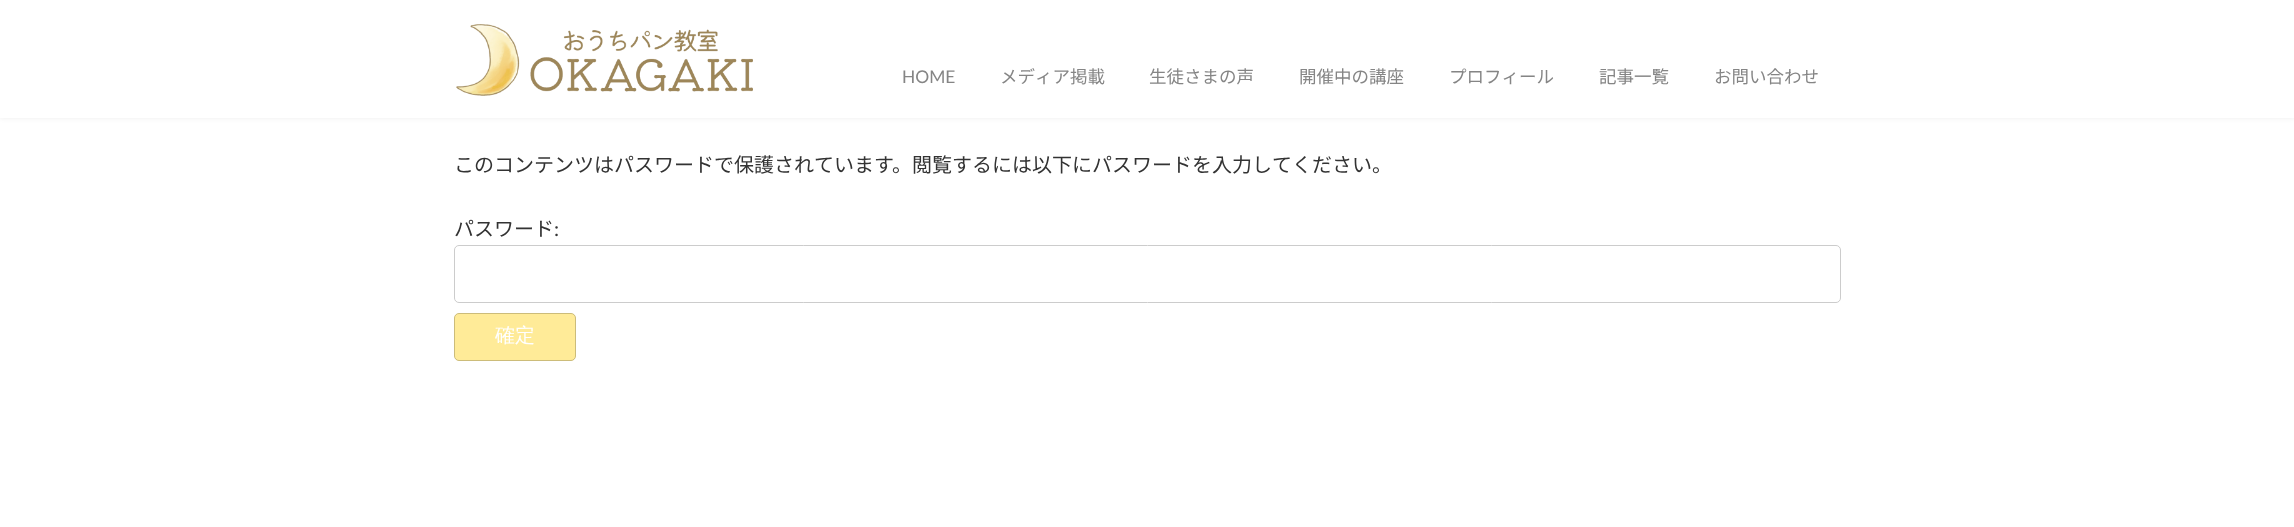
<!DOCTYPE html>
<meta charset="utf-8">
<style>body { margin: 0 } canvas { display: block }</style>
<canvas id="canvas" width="2294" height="527"></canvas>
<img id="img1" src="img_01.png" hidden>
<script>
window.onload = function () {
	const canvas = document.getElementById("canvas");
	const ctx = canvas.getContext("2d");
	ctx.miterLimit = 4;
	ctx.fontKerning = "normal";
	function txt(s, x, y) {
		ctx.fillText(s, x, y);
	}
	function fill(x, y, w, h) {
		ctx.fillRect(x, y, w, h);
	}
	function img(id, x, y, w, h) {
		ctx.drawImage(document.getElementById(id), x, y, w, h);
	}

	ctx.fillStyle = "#FFFFFF";
	fill(0, 0, 2294, 527);
	ctx.fillStyle = "rgba(0, 0, 0, 0.05)";
	ctx.filter = "blur(2px)";
	ctx.beginPath();
	ctx.rect(0, 1, 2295, 118);
	ctx.fill();
	ctx.filter = "none";
	ctx.fillStyle = "#FFFFFF";
	fill(0, 0, 2294, 118);
	img("img1", 456, 24, 297, 72);
	ctx.beginPath();
	ctx.roundRect(454.5, 245.5, 1386, 57, 4.5);
	ctx.strokeStyle = "#CCCCCC";
	ctx.stroke();
	ctx.fillStyle = "#FFEB98";
	ctx.beginPath();
	ctx.roundRect(454.5, 313.5, 121, 47, 4.5);
	ctx.fill();
	ctx.strokeStyle = "#CCBC7A";
	ctx.stroke();
	ctx.font = "17.5px Lato";
	ctx.fillStyle = "#858585";
	txt("HOME", 902, 83);
	ctx.font = "17.5px Noto Sans JP";
	txt("メディア掲載", 1000, 83);
	txt("生徒さまの声", 1149, 83);
	txt("開催中の講座", 1299, 83);
	txt("プロフィール", 1449, 83);
	txt("記事一覧", 1599, 83);
	txt("お問い合わせ", 1714, 83);
	ctx.font = "20px Noto Sans JP";
	ctx.fillStyle = "#333333";
	txt("このコンテンツはパスワードで保護されています。閲覧するには以下にパスワードを入力してください。", 454, 172);
	txt("パスワード", 454, 236);
	ctx.font = "20px Lato";
	txt(":", 554, 236);
	ctx.font = "500 20px WenQuanYi Zen Hei";
	ctx.fillStyle = "#FFFFFF";
	txt("確定", 495, 342);
};
</script>
